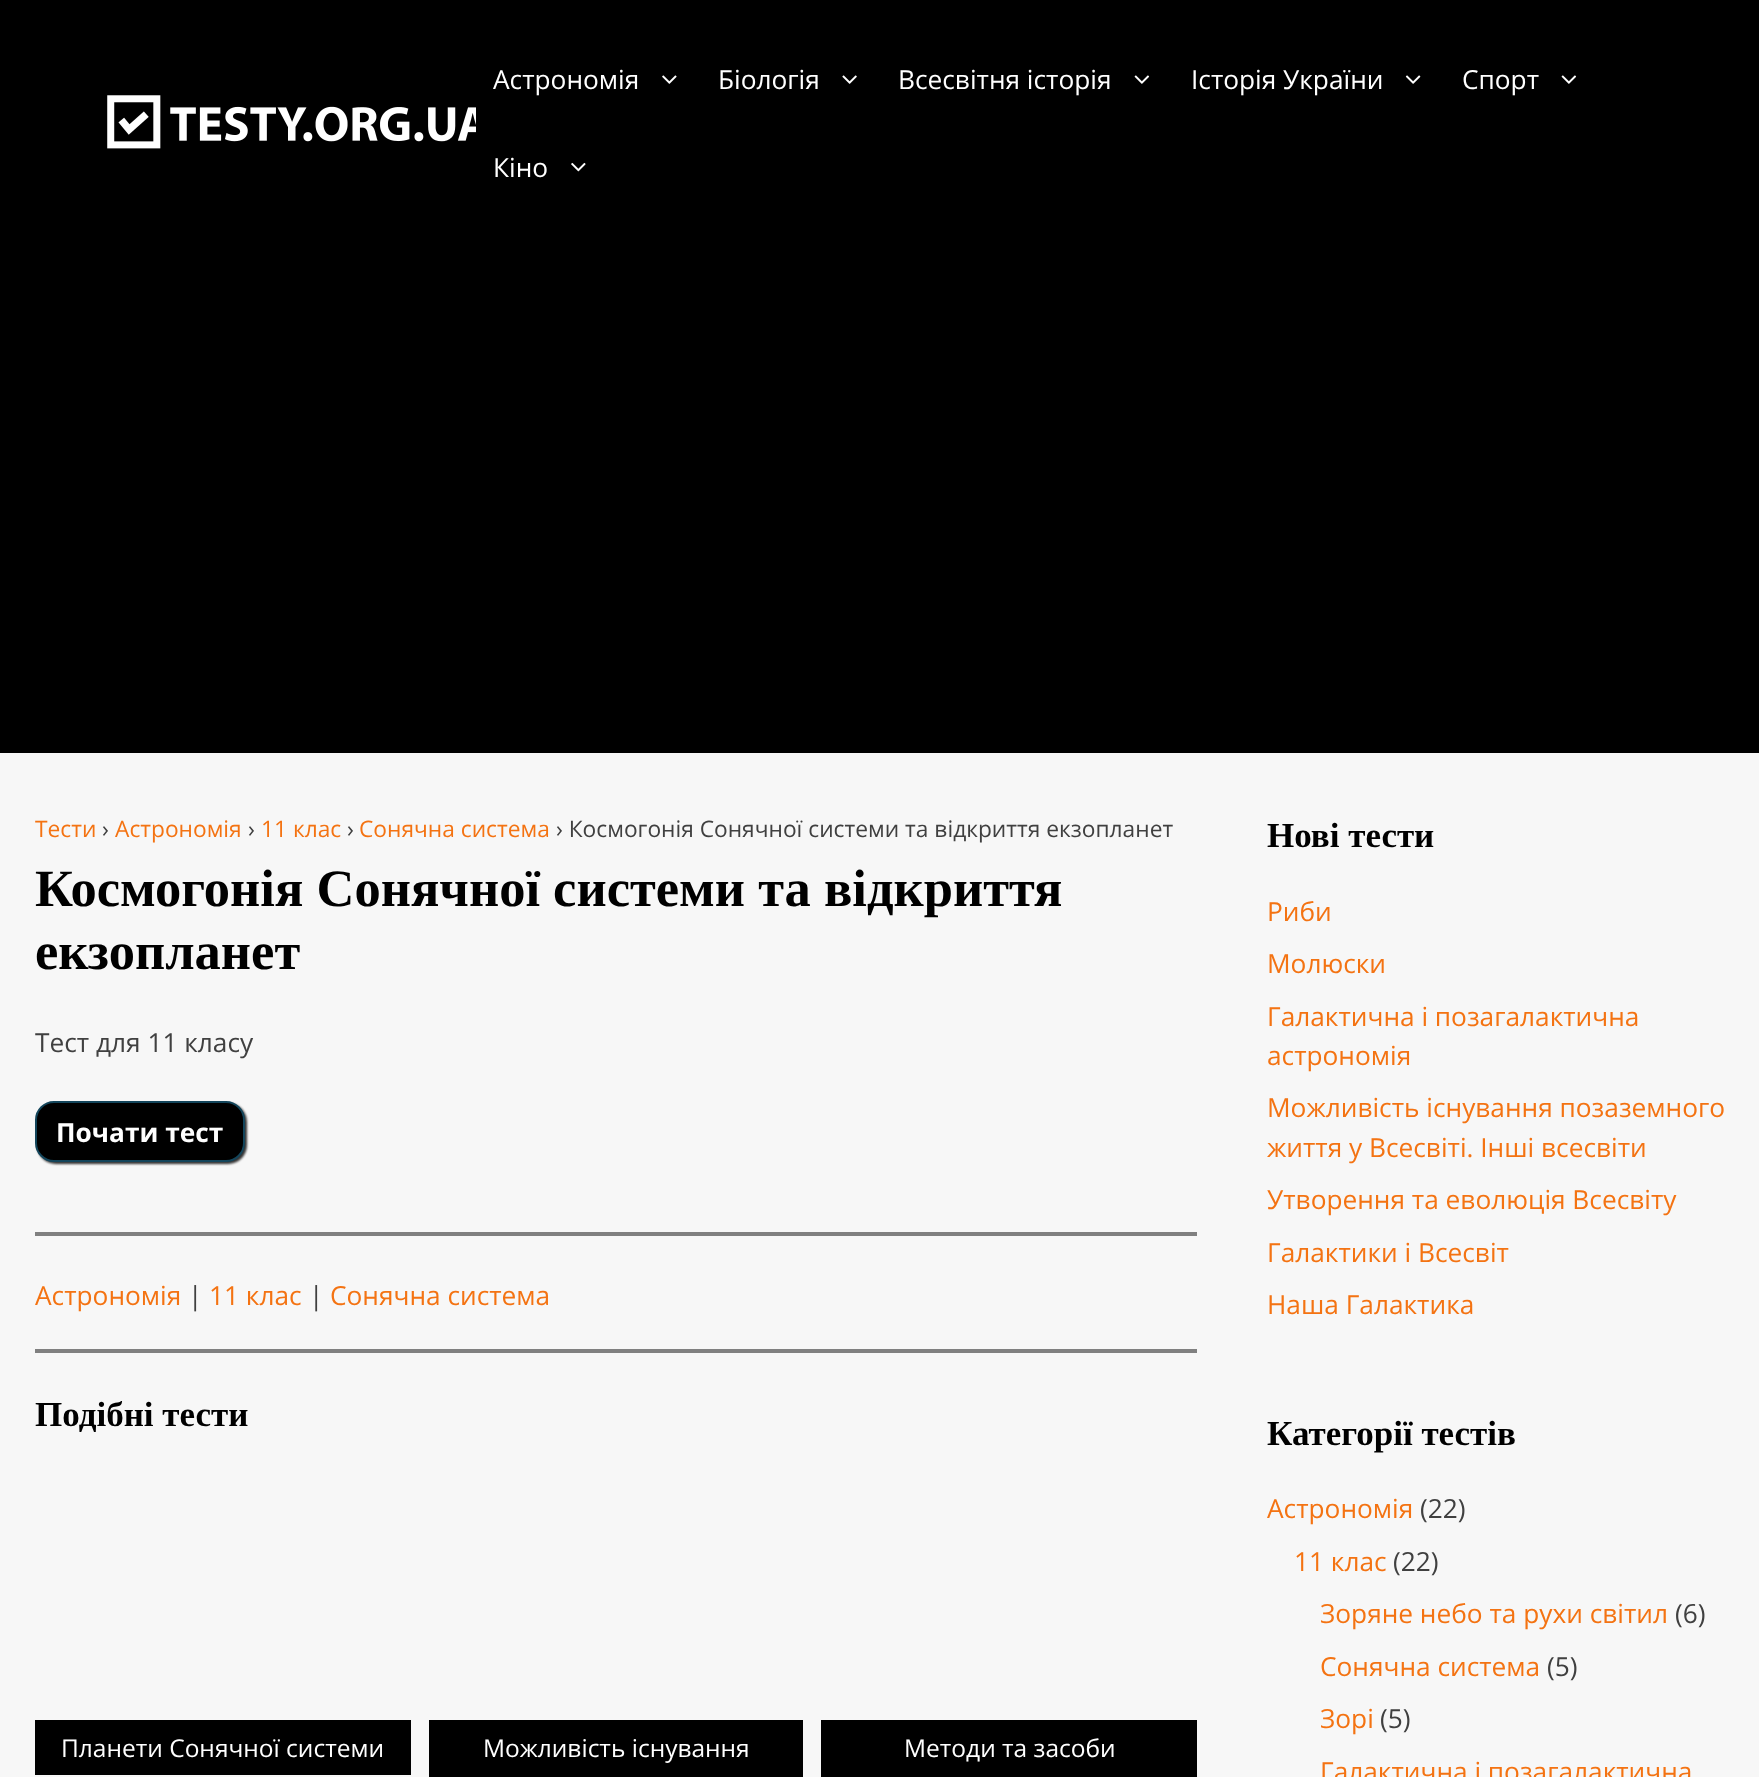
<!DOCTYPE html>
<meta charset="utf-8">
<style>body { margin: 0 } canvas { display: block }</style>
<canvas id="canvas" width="1759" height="1777"></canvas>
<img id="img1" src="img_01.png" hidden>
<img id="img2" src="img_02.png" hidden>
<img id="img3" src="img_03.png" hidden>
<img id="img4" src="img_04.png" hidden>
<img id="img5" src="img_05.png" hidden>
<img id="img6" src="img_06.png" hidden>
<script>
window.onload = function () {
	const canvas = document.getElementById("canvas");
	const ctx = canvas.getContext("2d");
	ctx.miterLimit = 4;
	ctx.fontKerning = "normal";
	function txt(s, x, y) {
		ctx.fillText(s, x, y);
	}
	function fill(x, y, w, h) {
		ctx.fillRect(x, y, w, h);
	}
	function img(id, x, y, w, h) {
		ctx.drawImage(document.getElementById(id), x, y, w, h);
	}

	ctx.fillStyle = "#F7F7F7";
	fill(0, 0, 1759, 1777);
	ctx.fillStyle = "#000000";
	fill(0, 0, 1759, 753);
	img("img1", 107, 95, 369, 54);
	img("img2", 662, 75, 15, 9);
	img("img3", 842, 75, 15, 9);
	img("img4", 1134, 75, 16, 9);
	img("img5", 1405, 75, 16, 9);
	img("img4", 1561, 75, 16, 9);
	img("img6", 571, 162, 15, 10);
	ctx.fillStyle = "#333333";
	ctx.filter = "blur(1px)";
	ctx.beginPath();
	ctx.roundRect(37, 1103, 210, 61, 19);
	ctx.fill();
	ctx.filter = "none";
	ctx.fillStyle = "#000000";
	ctx.beginPath();
	ctx.roundRect(36, 1102, 208, 59, 18);
	ctx.fill();
	ctx.strokeStyle = "#13455B";
	ctx.lineWidth = 2;
	ctx.stroke();
	ctx.fillStyle = "#808080";
	fill(35, 1232, 1162, 4);
	fill(35, 1349, 1162, 4);
	ctx.fillStyle = "#000000";
	fill(35, 1720, 376, 55);
	fill(429, 1720, 374, 57);
	fill(821, 1720, 376, 57);
	ctx.font = "26.25px Open Sans";
	ctx.fillStyle = "#FFFFFF";
	txt("Астрономія", 493, 89);
	txt("Біологія", 718, 89);
	txt("Всесвітня історія", 898, 89);
	txt("Історія України", 1191, 89);
	txt("Спорт", 1462, 89);
	txt("Кіно", 493, 177);
	ctx.font = "22.75px Open Sans";
	ctx.fillStyle = "#F47312";
	txt("Тести", 35, 837);
	ctx.fillStyle = "#404040";
	txt("›", 102, 837);
	ctx.fillStyle = "#F47312";
	txt("Астрономія", 115, 837);
	ctx.fillStyle = "#404040";
	txt("›", 248, 837);
	ctx.fillStyle = "#F47312";
	txt("11 клас", 261, 837);
	ctx.fillStyle = "#404040";
	txt("›", 347, 837);
	ctx.fillStyle = "#F47312";
	txt("Сонячна система", 359, 837);
	ctx.fillStyle = "#404040";
	txt("› Космогонія Сонячної системи та відкриття екзопланет", 556, 837);
	ctx.font = "bold 52.5px Liberation Serif";
	ctx.fillStyle = "#000000";
	txt("Космогонія Сонячної системи та відкриття", 35, 906);
	txt("екзопланет", 35, 969);
	ctx.font = "26.25px Open Sans";
	ctx.fillStyle = "#404040";
	txt("Тест для 11 класу", 35, 1052);
	ctx.font = "bold 26.25px Open Sans";
	ctx.fillStyle = "#FFFFFF";
	txt("Почати тест", 56, 1142);
	ctx.font = "26.25px Open Sans";
	ctx.fillStyle = "#F47312";
	txt("Астрономія", 35, 1305);
	ctx.fillStyle = "#404040";
	txt("|", 188, 1305);
	ctx.fillStyle = "#F47312";
	txt("11 клас", 209, 1305);
	ctx.fillStyle = "#404040";
	txt("|", 309, 1305);
	ctx.fillStyle = "#F47312";
	txt("Сонячна система", 330, 1305);
	ctx.font = "bold 35px Liberation Serif";
	ctx.fillStyle = "#000000";
	txt("Подібні тести", 35, 1426);
	ctx.font = "24.5px Open Sans";
	ctx.fillStyle = "#FFFFFF";
	txt("Планети Сонячної системи", 61, 1757);
	txt("Можливість існування", 483, 1757);
	txt("Методи та засоби", 904, 1757);
	ctx.font = "bold 35px Liberation Serif";
	ctx.fillStyle = "#000000";
	txt("Нові тести", 1267, 847);
	ctx.font = "26.25px Open Sans";
	ctx.fillStyle = "#F47312";
	txt("Риби", 1267, 921);
	txt("Молюски", 1267, 973);
	txt("Галактична і позагалактична", 1267, 1026);
	txt("астрономія", 1267, 1065);
	txt("Можливість існування позаземного", 1267, 1117);
	txt("життя у Всесвіті. Інші всесвіти", 1267, 1157);
	txt("Утворення та еволюція Всесвіту", 1267, 1209);
	txt("Галактики і Всесвіт", 1267, 1262);
	txt("Наша Галактика", 1267, 1314);
	ctx.font = "bold 35px Liberation Serif";
	ctx.fillStyle = "#000000";
	txt("Категорії тестів", 1267, 1445);
	ctx.font = "26.25px Open Sans";
	ctx.fillStyle = "#F47312";
	txt("Астрономія", 1267, 1518);
	ctx.fillStyle = "#404040";
	txt("(22)", 1420, 1518);
	ctx.fillStyle = "#F47312";
	txt("11 клас", 1294, 1571);
	ctx.fillStyle = "#404040";
	txt("(22)", 1393, 1571);
	ctx.fillStyle = "#F47312";
	txt("Зоряне небо та рухи світил", 1320, 1623);
	ctx.fillStyle = "#404040";
	txt("(6)", 1675, 1623);
	ctx.fillStyle = "#F47312";
	txt("Сонячна система", 1320, 1676);
	ctx.fillStyle = "#404040";
	txt("(5)", 1547, 1676);
	ctx.fillStyle = "#F47312";
	txt("Зорі", 1320, 1728);
	ctx.fillStyle = "#404040";
	txt("(5)", 1380, 1728);
	ctx.fillStyle = "#F47312";
	txt("Галактична і позагалактична", 1320, 1781);
};
</script>
